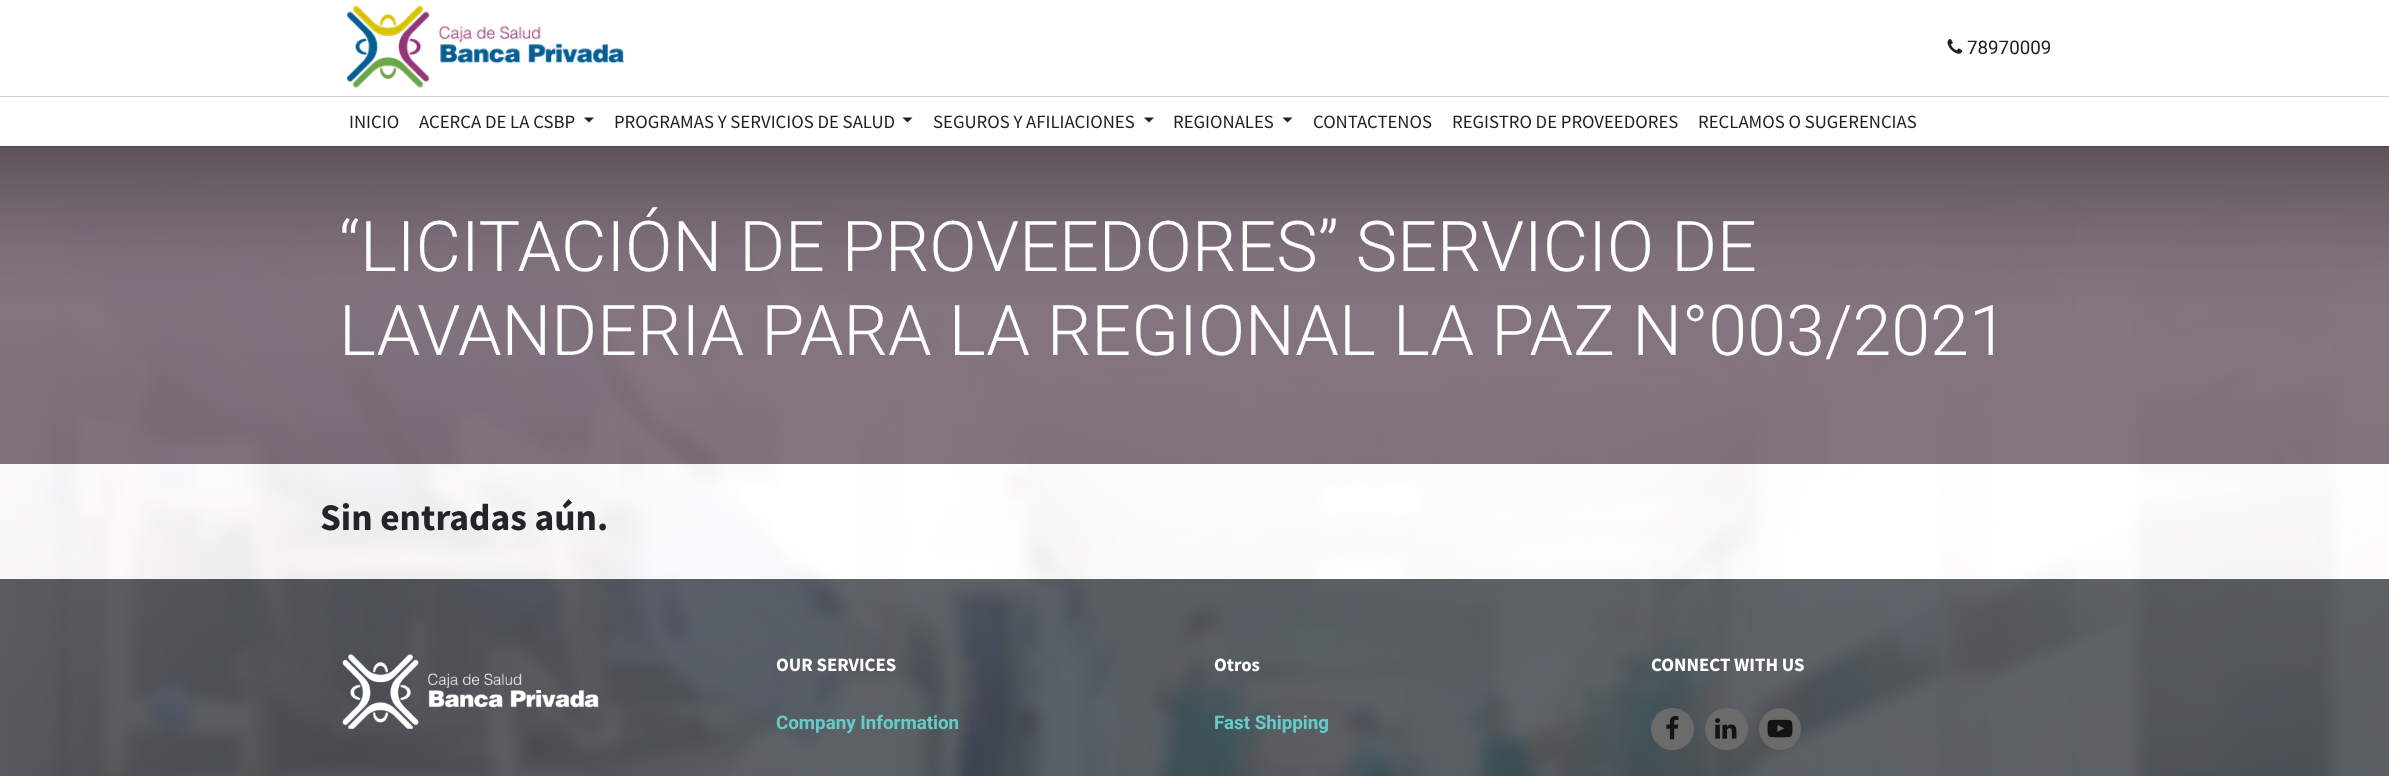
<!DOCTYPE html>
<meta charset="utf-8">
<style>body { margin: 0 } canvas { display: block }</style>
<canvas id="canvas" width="2389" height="776"></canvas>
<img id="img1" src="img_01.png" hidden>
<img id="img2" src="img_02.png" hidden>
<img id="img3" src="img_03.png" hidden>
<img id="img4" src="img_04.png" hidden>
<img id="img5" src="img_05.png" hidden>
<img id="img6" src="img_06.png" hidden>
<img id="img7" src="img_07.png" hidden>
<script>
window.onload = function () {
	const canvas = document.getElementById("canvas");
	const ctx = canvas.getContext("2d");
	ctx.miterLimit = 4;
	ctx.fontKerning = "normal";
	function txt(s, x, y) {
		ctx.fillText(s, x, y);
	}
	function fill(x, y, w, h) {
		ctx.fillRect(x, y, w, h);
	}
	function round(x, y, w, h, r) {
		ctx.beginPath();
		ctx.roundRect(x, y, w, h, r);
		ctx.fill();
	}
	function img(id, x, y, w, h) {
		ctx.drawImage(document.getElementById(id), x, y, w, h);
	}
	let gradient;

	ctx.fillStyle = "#FFFFFF";
	fill(0, 0, 2389, 776);
	img("img1", 346, 5, 278, 83);
	img("img2", 1947, 39, 16, 15);
	ctx.fillStyle = "#D0D0D0";
	fill(0, 96, 2389, 1);
	ctx.fillStyle = "#202020";
	ctx.beginPath();
	ctx.moveTo(584, 117.5);
	ctx.lineTo(594, 117.5);
	ctx.lineTo(589, 122.5);
	ctx.closePath();
	ctx.fill();
	ctx.beginPath();
	ctx.moveTo(902.5, 117.5);
	ctx.lineTo(912.5, 117.5);
	ctx.lineTo(907.5, 122.5);
	ctx.closePath();
	ctx.fill();
	ctx.beginPath();
	ctx.moveTo(1144, 117.5);
	ctx.lineTo(1154, 117.5);
	ctx.lineTo(1149, 122.5);
	ctx.closePath();
	ctx.fill();
	ctx.beginPath();
	ctx.moveTo(1282.5, 117.5);
	ctx.lineTo(1292.5, 117.5);
	ctx.lineTo(1287.5, 122.5);
	ctx.closePath();
	ctx.fill();
	ctx.fillStyle = "#665361";
	fill(0, 305, 2389, 159);
	gradient = ctx.createLinearGradient(1195, 146, 1195, 305);
	gradient.addColorStop(0, "#332930");
	gradient.addColorStop(0.19, "#40343E");
	gradient.addColorStop(0.34, "#4B3C47");
	gradient.addColorStop(0.47, "#52424F");
	gradient.addColorStop(0.56, "#584754");
	gradient.addColorStop(0.65, "#5C4B58");
	gradient.addColorStop(0.73, "#5F4D5B");
	gradient.addColorStop(0.8, "#624F5D");
	gradient.addColorStop(0.86, "#64505F");
	gradient.addColorStop(0.91, "#655160");
	gradient.addColorStop(0.95, "#665261");
	gradient.addColorStop(0.98, "#665262");
	gradient.addColorStop(1, "#665262");
	ctx.fillStyle = gradient;
	fill(0, 146, 2389, 159);
	ctx.fillStyle = "#383E45";
	fill(0, 579, 2389, 197);
	img("img3", 0, 146, 2389, 630);
	img("img4", 342, 654, 257, 75);
	ctx.fillStyle = "#6B6B6B";
	round(1651, 708, 43, 42, 21);
	img("img5", 1666, 716, 13, 24);
	round(1705, 708, 43, 42, 21);
	img("img6", 1715, 718, 22, 21);
	ctx.beginPath();
	ctx.arc(1780, 729, 21, 0, Math.PI * 2);
	ctx.fill();
	img("img7", 1767, 719, 26, 19);
	ctx.font = "18.75px Roboto";
	ctx.fillStyle = "#202020";
	txt("78970009", 1967, 54);
	ctx.font = "18.75px Source Sans Pro";
	txt("INICIO", 349, 128);
	txt("ACERCA DE LA CSBP", 419, 128);
	txt("PROGRAMAS Y SERVICIOS DE SALUD", 614, 128);
	txt("SEGUROS Y AFILIACIONES", 933, 128);
	txt("REGIONALES", 1173, 128);
	txt("CONTACTENOS", 1313, 128);
	txt("REGISTRO DE PROVEEDORES", 1452, 128);
	txt("RECLAMOS O SUGERENCIAS", 1698, 128);
	ctx.font = "300 70px Roboto";
	ctx.fillStyle = "#FFFFFF";
	txt("“LICITACIÓN DE PROVEEDORES” SERVICIO DE", 339, 271);
	txt("LAVANDERIA PARA LA REGIONAL LA PAZ N°003/2021", 339, 355);
	ctx.font = "bold 37.5px Source Sans Pro";
	ctx.fillStyle = "#212529";
	txt("Sin entradas aún.", 320, 530);
	ctx.font = "bold 18.75px Source Sans Pro";
	ctx.fillStyle = "#FFFFFF";
	txt("OUR SERVICES", 776, 671);
	ctx.font = "bold 18.75px Roboto";
	ctx.fillStyle = "#66CCCA";
	txt("Company Information", 776, 729);
	ctx.font = "bold 18.75px Source Sans Pro";
	ctx.fillStyle = "#FFFFFF";
	txt("Otros", 1214, 671);
	ctx.font = "bold 18.75px Roboto";
	ctx.fillStyle = "#66CCCA";
	txt("Fast Shipping", 1214, 729);
	ctx.font = "bold 18.75px Source Sans Pro";
	ctx.fillStyle = "#FFFFFF";
	txt("CONNECT WITH US", 1651, 671);
};
</script>
